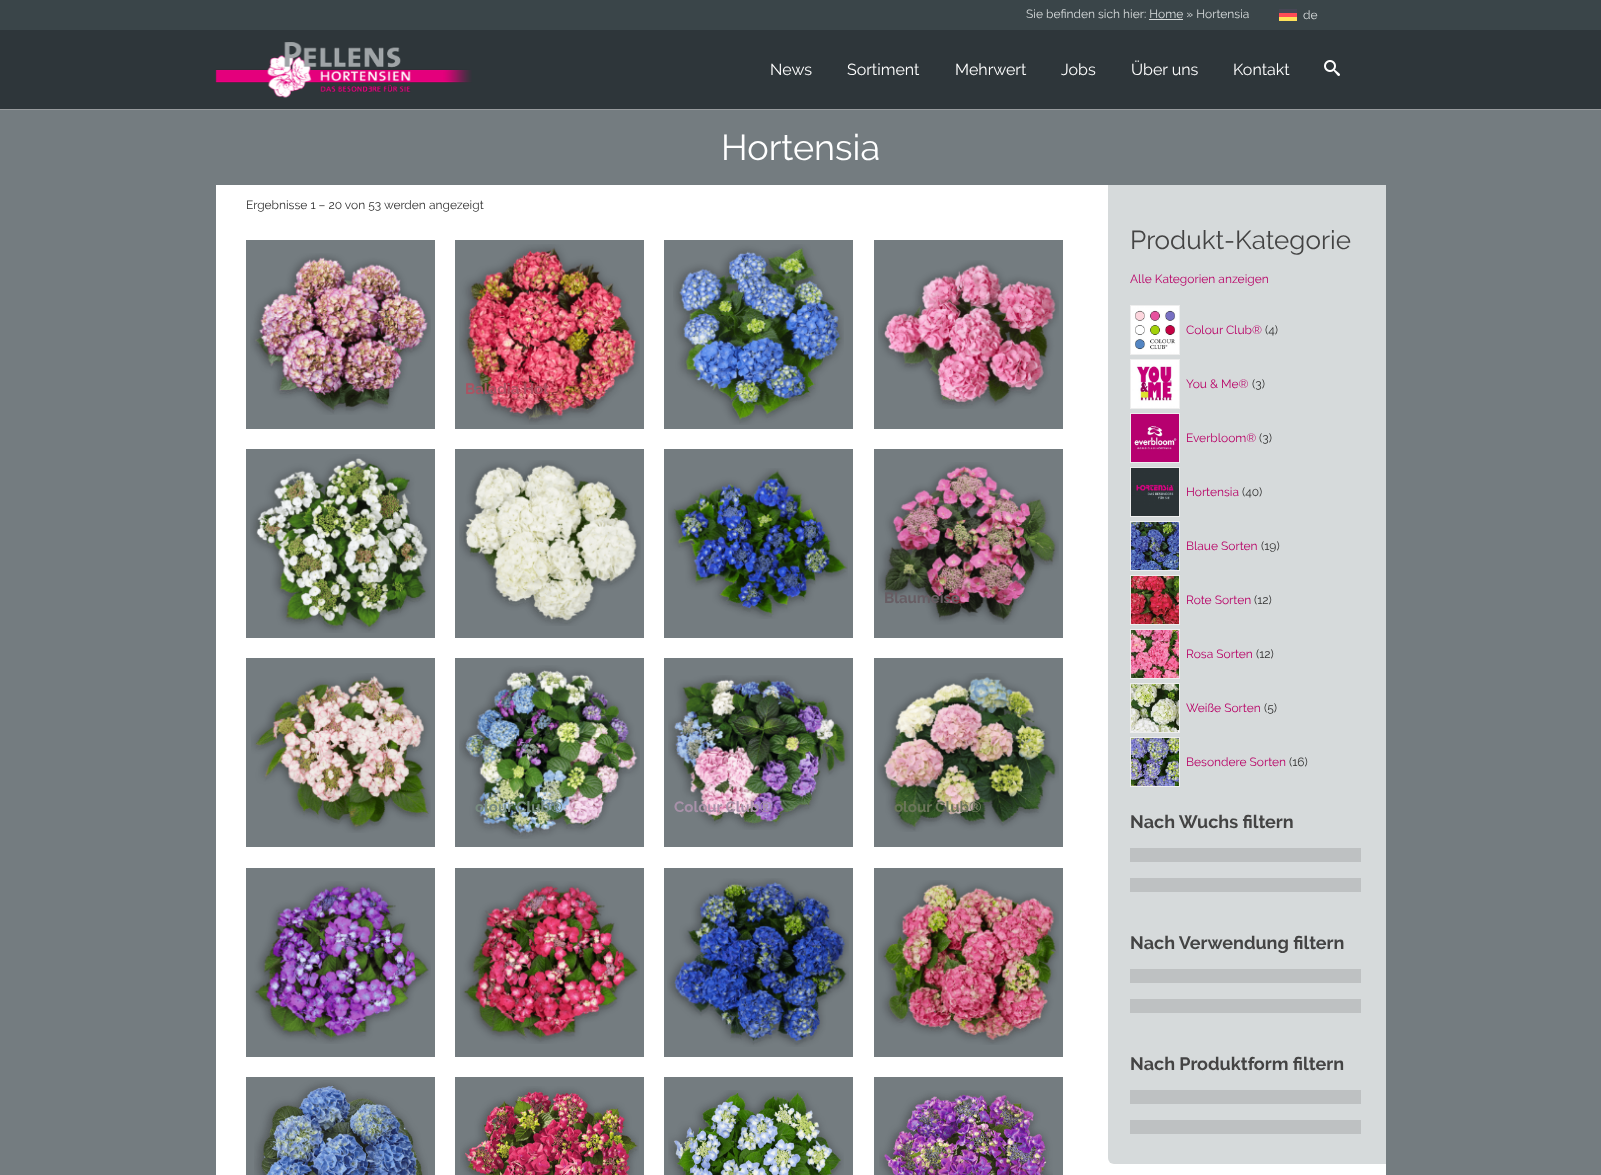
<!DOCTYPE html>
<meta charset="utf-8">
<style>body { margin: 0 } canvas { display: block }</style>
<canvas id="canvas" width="1601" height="1175"></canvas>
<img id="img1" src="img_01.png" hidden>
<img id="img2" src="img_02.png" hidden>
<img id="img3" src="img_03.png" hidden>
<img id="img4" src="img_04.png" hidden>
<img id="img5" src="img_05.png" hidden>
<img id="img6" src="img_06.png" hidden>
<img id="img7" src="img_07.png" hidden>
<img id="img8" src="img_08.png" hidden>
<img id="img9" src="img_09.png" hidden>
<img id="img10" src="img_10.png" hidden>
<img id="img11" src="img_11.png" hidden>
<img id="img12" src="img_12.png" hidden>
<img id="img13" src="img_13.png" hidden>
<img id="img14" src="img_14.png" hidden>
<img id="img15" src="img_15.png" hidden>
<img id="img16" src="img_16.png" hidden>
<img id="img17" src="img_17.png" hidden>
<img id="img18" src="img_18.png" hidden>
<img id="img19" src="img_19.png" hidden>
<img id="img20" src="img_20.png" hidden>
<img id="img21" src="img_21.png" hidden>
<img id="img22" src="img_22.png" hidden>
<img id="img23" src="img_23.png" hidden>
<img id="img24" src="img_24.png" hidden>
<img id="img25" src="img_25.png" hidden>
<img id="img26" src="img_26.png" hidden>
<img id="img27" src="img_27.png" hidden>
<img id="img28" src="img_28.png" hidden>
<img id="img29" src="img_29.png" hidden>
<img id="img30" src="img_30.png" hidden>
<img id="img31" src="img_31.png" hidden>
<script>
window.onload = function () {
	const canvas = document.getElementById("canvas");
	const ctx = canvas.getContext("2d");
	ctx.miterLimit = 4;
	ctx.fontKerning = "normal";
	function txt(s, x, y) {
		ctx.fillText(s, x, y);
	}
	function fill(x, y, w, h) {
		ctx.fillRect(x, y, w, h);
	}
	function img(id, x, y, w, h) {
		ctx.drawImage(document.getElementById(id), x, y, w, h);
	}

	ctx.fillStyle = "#747C80";
	fill(0, 0, 1601, 1175);
	ctx.fillStyle = "#2E363A";
	fill(0, 30, 1601, 79);
	ctx.fillStyle = "#979B9D";
	fill(0, 109, 1601, 1);
	ctx.fillStyle = "#3A4549";
	fill(0, 0, 1601, 30);
	ctx.fillStyle = "#D6DADB";
	fill(1149, 19, 34, 1);
	ctx.fillStyle = "#FF4B55";
	fill(1279, 13, 18, 4);
	ctx.fillStyle = "#FFE15A";
	fill(1279, 17, 18, 4);
	ctx.fillStyle = "#464655";
	fill(1279, 9, 18, 4);
	img("img1", 215, 42, 257, 56);
	img("img2", 1324, 60, 16, 16);
	ctx.fillStyle = "#FFFFFF";
	fill(216, 185, 1170, 990);
	ctx.fillStyle = "#747C80";
	fill(246, 240, 189, 189);
	img("img3", 250, 253, 181, 162);
	fill(455, 240, 189, 189);
	img("img4", 459, 244, 181, 181);
	fill(664, 240, 189, 189);
	img("img5", 673, 244, 171, 181);
	fill(874, 240, 189, 189);
	img("img6", 878, 260, 181, 149);
	fill(246, 449, 189, 189);
	img("img7", 250, 454, 181, 179);
	fill(455, 449, 189, 189);
	img("img8", 459, 460, 182, 166);
	fill(664, 449, 189, 189);
	img("img9", 668, 468, 180, 151);
	fill(874, 449, 189, 189);
	img("img10", 878, 462, 181, 163);
	fill(246, 658, 189, 189);
	img("img11", 251, 673, 180, 160);
	fill(455, 658, 189, 189);
	img("img12", 459, 665, 181, 174);
	fill(664, 658, 189, 189);
	img("img13", 668, 675, 182, 155);
	fill(874, 658, 189, 189);
	img("img14", 877, 673, 182, 159);
	fill(246, 868, 189, 189);
	img("img15", 250, 881, 181, 163);
	fill(455, 868, 189, 189);
	img("img16", 460, 881, 180, 163);
	fill(664, 868, 189, 189);
	img("img17", 667, 878, 182, 169);
	fill(874, 868, 189, 189);
	img("img18", 878, 880, 181, 165);
	fill(246, 1077, 189, 98);
	img("img19", 254, 1080, 174, 95);
	fill(455, 1077, 189, 98);
	img("img20", 460, 1086, 179, 89);
	fill(664, 1077, 189, 98);
	img("img21", 668, 1090, 176, 85);
	fill(874, 1077, 189, 98);
	img("img22", 879, 1090, 174, 85);
	ctx.fillStyle = "#D6DADB";
	ctx.beginPath();
	ctx.roundRect(1108, 185, 278, 979, [0, 0, 0, 6]);
	ctx.fill();
	ctx.strokeStyle = "#EEEEEE";
	ctx.strokeRect(1130.5, 305.5, 49, 49);
	img("img23", 1131, 306, 48, 48);
	ctx.strokeRect(1130.5, 359.5, 49, 49);
	img("img24", 1131, 360, 48, 48);
	ctx.strokeRect(1130.5, 413.5, 49, 49);
	img("img25", 1131, 414, 48, 48);
	ctx.strokeRect(1130.5, 467.5, 49, 49);
	img("img26", 1131, 468, 48, 48);
	ctx.strokeRect(1130.5, 521.5, 49, 49);
	img("img27", 1131, 522, 48, 48);
	ctx.strokeRect(1130.5, 575.5, 49, 49);
	img("img28", 1131, 576, 48, 48);
	ctx.strokeRect(1130.5, 629.5, 49, 49);
	img("img29", 1131, 630, 48, 48);
	ctx.strokeRect(1130.5, 683.5, 49, 49);
	img("img30", 1131, 684, 48, 48);
	ctx.strokeRect(1130.5, 737.5, 49, 49);
	img("img31", 1131, 738, 48, 48);
	ctx.fillStyle = "#BEC1C2";
	fill(1130, 848, 231, 14);
	fill(1130, 878, 231, 14);
	fill(1130, 969, 231, 14);
	fill(1130, 999, 231, 14);
	fill(1130, 1090, 231, 14);
	fill(1130, 1120, 231, 14);
	ctx.font = "12px Raleway";
	ctx.fillStyle = "#D6DADB";
	txt("Sie befinden sich hier: Home » Hortensia", 1026, 18);
	txt("de", 1303, 19);
	ctx.font = "16px Raleway";
	ctx.fillStyle = "#FFFFFF";
	txt("News", 770, 75);
	txt("Sortiment", 847, 75);
	txt("Mehrwert", 955, 75);
	txt("Jobs", 1061, 75);
	txt("Über uns", 1131, 75);
	txt("Kontakt", 1233, 75);
	ctx.font = "36px Raleway";
	txt("Hortensia", 721, 160);
	ctx.font = "12px Raleway";
	ctx.fillStyle = "#333333";
	txt("Ergebnisse 1 – 20 von 53 werden angezeigt", 246, 209);
	ctx.font = "bold 15px Raleway";
	ctx.fillStyle = "#AA5463";
	txt("Baladia Hot", 465, 394);
	ctx.fillStyle = "#675D63";
	txt("Blaumeise", 884, 603);
	ctx.fillStyle = "#788C80";
	txt("olour Club®", 475, 812);
	ctx.fillStyle = "#A891A9";
	txt("Colour Club®", 674, 812);
	ctx.fillStyle = "#6B755A";
	txt("olour Club®", 894, 812);
	ctx.font = "26px Raleway";
	ctx.fillStyle = "#444444";
	txt("Produkt-Kategorie", 1130, 249);
	ctx.font = "12px Raleway";
	ctx.fillStyle = "#B80066";
	txt("Alle Kategorien anzeigen", 1130, 283);
	txt("Colour Club®", 1186, 334);
	ctx.fillStyle = "#333333";
	txt("(4)", 1265, 334);
	ctx.fillStyle = "#B80066";
	txt("You & Me®", 1186, 388);
	ctx.fillStyle = "#333333";
	txt("(3)", 1252, 388);
	ctx.fillStyle = "#B80066";
	txt("Everbloom®", 1186, 442);
	ctx.fillStyle = "#333333";
	txt("(3)", 1259, 442);
	ctx.fillStyle = "#B80066";
	txt("Hortensia", 1186, 496);
	ctx.fillStyle = "#333333";
	txt("(40)", 1242, 496);
	ctx.fillStyle = "#B80066";
	txt("Blaue Sorten", 1186, 550);
	ctx.fillStyle = "#333333";
	txt("(19)", 1261, 550);
	ctx.fillStyle = "#B80066";
	txt("Rote Sorten", 1186, 604);
	ctx.fillStyle = "#333333";
	txt("(12)", 1254, 604);
	ctx.fillStyle = "#B80066";
	txt("Rosa Sorten", 1186, 658);
	ctx.fillStyle = "#333333";
	txt("(12)", 1256, 658);
	ctx.fillStyle = "#B80066";
	txt("Weiße Sorten", 1186, 712);
	ctx.fillStyle = "#333333";
	txt("(5)", 1264, 712);
	ctx.fillStyle = "#B80066";
	txt("Besondere Sorten", 1186, 766);
	ctx.fillStyle = "#333333";
	txt("(16)", 1289, 766);
	ctx.font = "bold 18px Raleway";
	ctx.fillStyle = "#444444";
	txt("Nach Wuchs filtern", 1130, 828);
	txt("Nach Verwendung filtern", 1130, 949);
	txt("Nach Produktform filtern", 1130, 1070);
};
</script>
